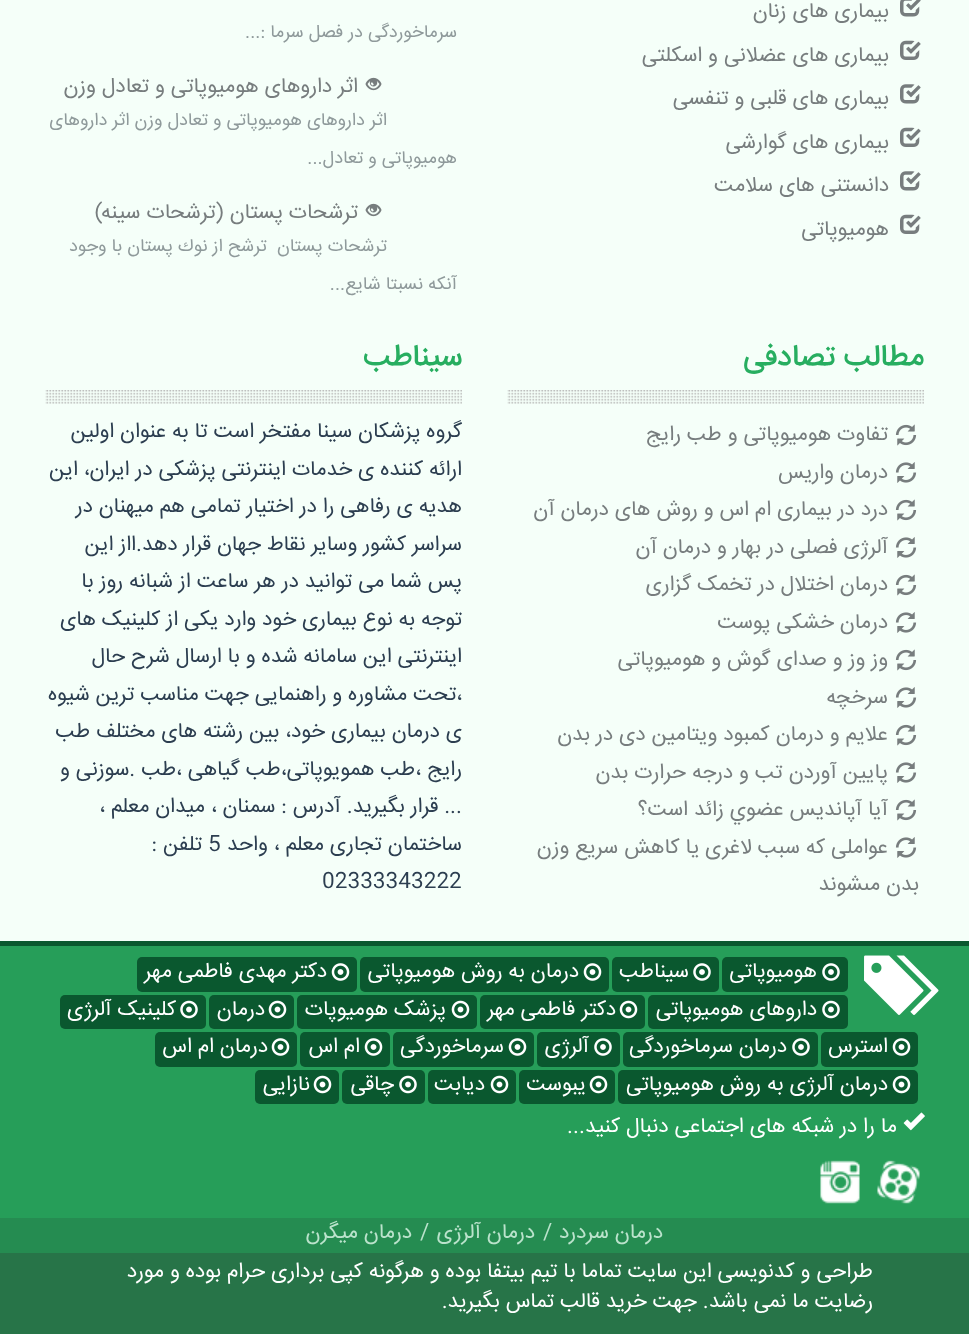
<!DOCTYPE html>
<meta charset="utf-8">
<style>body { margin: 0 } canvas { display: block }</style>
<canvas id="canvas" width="969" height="1334"></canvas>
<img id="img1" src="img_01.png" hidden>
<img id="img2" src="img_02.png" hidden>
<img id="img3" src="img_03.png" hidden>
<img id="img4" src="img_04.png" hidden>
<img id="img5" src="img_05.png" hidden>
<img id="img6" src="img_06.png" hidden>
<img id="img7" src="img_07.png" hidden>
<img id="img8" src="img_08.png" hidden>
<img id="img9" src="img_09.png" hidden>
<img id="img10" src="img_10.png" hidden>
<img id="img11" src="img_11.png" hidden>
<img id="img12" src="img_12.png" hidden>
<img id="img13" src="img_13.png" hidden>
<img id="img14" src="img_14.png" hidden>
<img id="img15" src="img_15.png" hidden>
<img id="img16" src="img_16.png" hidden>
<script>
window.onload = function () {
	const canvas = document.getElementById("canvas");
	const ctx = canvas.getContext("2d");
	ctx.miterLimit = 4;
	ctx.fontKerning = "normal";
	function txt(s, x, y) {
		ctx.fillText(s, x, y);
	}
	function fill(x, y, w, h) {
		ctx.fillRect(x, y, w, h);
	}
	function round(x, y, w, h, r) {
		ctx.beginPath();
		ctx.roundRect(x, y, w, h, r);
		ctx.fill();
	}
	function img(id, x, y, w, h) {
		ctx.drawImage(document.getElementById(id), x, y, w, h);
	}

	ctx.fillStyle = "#F5FFF9";
	fill(0, 0, 969, 1334);
	img("img1", 900, 0, 21, 17);
	img("img2", 900, 40, 21, 20);
	img("img3", 900, 84, 21, 20);
	img("img2", 900, 127, 21, 20);
	img("img3", 900, 171, 21, 20);
	img("img2", 900, 214, 21, 20);
	img("img4", 365, 77, 17, 14);
	img("img4", 365, 203, 17, 14);
	img("img5", 507, 390, 417, 14);
	img("img6", 895, 424, 22, 22);
	img("img7", 895, 462, 22, 21);
	img("img6", 895, 499, 22, 22);
	img("img7", 895, 537, 22, 21);
	img("img6", 895, 574, 22, 22);
	img("img7", 895, 612, 22, 21);
	img("img6", 895, 649, 22, 22);
	img("img7", 895, 687, 22, 21);
	img("img6", 895, 724, 22, 22);
	img("img7", 895, 762, 22, 21);
	img("img6", 895, 799, 22, 22);
	img("img7", 895, 837, 22, 21);
	img("img8", 45, 390, 417, 14);
	ctx.fillStyle = "#269E59";
	fill(0, 946, 969, 272);
	ctx.fillStyle = "#0A582F";
	fill(0, 941, 969, 5);
	img("img9", 864, 955, 75, 60);
	round(722, 957, 126, 35, 5);
	img("img10", 822, 963, 18, 18);
	round(612, 957, 107, 35, 5);
	img("img10", 693, 963, 18, 18);
	round(360, 957, 249, 35, 5);
	img("img11", 583, 963, 19, 18);
	round(137, 957, 220, 35, 5);
	img("img11", 331, 963, 19, 18);
	round(648, 995, 200, 34, 5);
	img("img12", 822, 1000, 18, 19);
	round(480, 995, 165, 34, 5);
	img("img13", 619, 1000, 19, 19);
	round(297, 995, 180, 34, 5);
	img("img13", 451, 1000, 19, 19);
	round(209, 995, 85, 34, 5);
	img("img13", 268, 1000, 19, 19);
	round(60, 995, 146, 34, 5);
	img("img12", 180, 1000, 18, 19);
	round(821, 1032, 97, 35, 5);
	img("img11", 892, 1038, 19, 18);
	round(623, 1032, 195, 35, 5);
	img("img10", 792, 1038, 18, 18);
	round(537, 1032, 83, 35, 5);
	img("img10", 594, 1038, 18, 18);
	round(393, 1032, 141, 35, 5);
	img("img11", 508, 1038, 19, 18);
	round(300, 1032, 90, 35, 5);
	img("img11", 364, 1038, 19, 18);
	round(155, 1032, 142, 35, 5);
	img("img11", 271, 1038, 19, 18);
	round(618, 1070, 300, 34, 5);
	img("img13", 892, 1075, 19, 19);
	round(519, 1070, 96, 34, 5);
	img("img13", 589, 1075, 19, 19);
	round(428, 1070, 88, 34, 5);
	img("img13", 490, 1075, 19, 19);
	round(342, 1070, 83, 34, 5);
	img("img12", 399, 1075, 18, 19);
	round(255, 1070, 84, 34, 5);
	img("img13", 313, 1075, 19, 19);
	img("img14", 903, 1112, 22, 19);
	img("img15", 877, 1160, 43, 44);
	img("img16", 820, 1160, 40, 44);
	ctx.fillStyle = "#258C51";
	fill(0, 1218, 969, 35);
	ctx.fillStyle = "#277448";
	fill(0, 1253, 969, 81);
	ctx.direction = "rtl";
	ctx.font = "21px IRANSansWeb";
	ctx.fillStyle = "#777D7E";
	txt("بیماری های زنان", 889, 17);
	txt("بیماری های عضلانی و اسکلتی", 889, 61);
	txt("بیماری های قلبی و تنفسی", 889, 104);
	txt("بیماری های گوارشی", 889, 148);
	txt("دانستنی های سلامت", 889, 191);
	txt("هومیوپاتی", 889, 235);
	ctx.font = "18px IRANSansWeb";
	ctx.fillStyle = "#8F9A9B";
	txt("سرماخوردگی در فصل سرما :...", 457, 37);
	ctx.font = "21px IRANSansWeb";
	ctx.fillStyle = "#777D7E";
	txt("اثر داروهای هومیوپاتی و تعادل وزن", 358, 92);
	ctx.font = "18px IRANSansWeb";
	ctx.fillStyle = "#8F9A9B";
	txt("اثر داروهای هومیوپاتی و تعادل وزن اثر داروهای", 387, 125);
	txt("هومیوپاتی و تعادل...", 457, 163);
	ctx.font = "21px IRANSansWeb";
	ctx.fillStyle = "#777D7E";
	txt("ترشحات پستان (ترشحات سینه)", 358, 218);
	ctx.font = "18px IRANSansWeb";
	ctx.fillStyle = "#8F9A9B";
	txt("ترشحات پستان  ترشح از نوك پستان با وجود", 387, 251);
	txt("آنكه نسبتا شايع...", 457, 289);
	ctx.font = "500 30px IRANSansWeb";
	ctx.fillStyle = "#27AE60";
	txt("مطالب تصادفی", 924, 365);
	ctx.font = "21px IRANSansWeb";
	ctx.fillStyle = "#777D7E";
	txt("تفاوت هومیوپاتی و طب رایج", 888, 440);
	txt("درمان واریس", 888, 478);
	txt("درد در بیماری ام اس و روش های درمان آن", 888, 515);
	txt("آلرژی فصلی در بهار و درمان آن", 888, 553);
	txt("درمان اختلال در تخمک گزاری", 888, 590);
	txt("درمان خشکی پوست", 888, 628);
	txt("وز وز و صدای گوش و هومیوپاتی", 888, 665);
	txt("سرخچه", 888, 703);
	txt("علایم و درمان کمبود ویتامین دی در بدن", 888, 740);
	txt("پایين آوردن تب و درجه حرارت بدن", 888, 778);
	txt("آیا آپانديس عضوي زائد است؟", 888, 815);
	txt("عواملى كه سبب لاغرى يا كاهش سريع وزن", 888, 853);
	txt("بدن مىشوند", 919, 890);
	ctx.font = "500 30px IRANSansWeb";
	ctx.fillStyle = "#27AE60";
	txt("سیناطب", 462, 365);
	ctx.font = "21px IRANSansWeb";
	ctx.fillStyle = "#2C3E50";
	txt("گروه پزشکان سینا مفتخر است تا به عنوان اولین", 462, 437);
	txt("ارائه کننده ی خدمات اینترنتی پزشکی در ایران، این", 462, 475);
	txt("هدیه ی رفاهی را در اختیار تمامی هم میهنان در", 462, 512);
	txt("سراسر کشور وسایر نقاط جهان قرار دهد.ااز این", 462, 550);
	txt("پس شما می توانید در هر ساعت از شبانه روز با", 462, 587);
	txt("توجه به نوع بیماری خود وارد یکی از کلینیک های", 462, 625);
	txt("اینترنتی این سامانه شده و با ارسال شرح حال", 462, 662);
	txt("،تحت مشاوره و راهنمایی جهت مناسب ترین شیوه", 462, 700);
	txt("ی درمان بیماری خود، بین رشته های مختلف طب", 462, 737);
	txt("رایج ،طب همویوپاتی،طب گیاهی ،طب .سوزنی و", 462, 775);
	txt("... قرار بگیرید. آدرس : سمنان ، میدان معلم ،", 462, 812);
	txt("ساختمان تجاری معلم ، واحد", 462, 850);
	ctx.direction = "ltr";
	txt("5", 208, 850);
	ctx.direction = "rtl";
	txt("تلفن :", 202, 850);
	ctx.direction = "ltr";
	txt("02333343222", 322, 887);
	ctx.direction = "rtl";
	ctx.fillStyle = "#FFFFFF";
	txt("هومیوپاتی", 817, 977);
	txt("سیناطب", 689, 977);
	txt("درمان به روش هومیوپاتی", 579, 977);
	txt("دکتر مهدی فاطمی مهر", 327, 977);
	txt("داروهای هومیوپاتی", 817, 1015);
	txt("دکتر فاطمی مهر", 616, 1015);
	txt("پزشک هومیوپات", 446, 1015);
	txt("درمان", 265, 1015);
	txt("کلینیک آلرژی", 176, 1015);
	txt("استرس", 888, 1052);
	txt("درمان سرماخوردگی", 787, 1052);
	txt("آلرژی", 589, 1052);
	txt("سرماخوردگی", 504, 1052);
	txt("ام اس", 360, 1052);
	txt("درمان ام اس", 268, 1052);
	txt("درمان آلرژی به روش هومیوپاتی", 888, 1090);
	txt("یبوست", 586, 1090);
	txt("دیابت", 485, 1090);
	txt("چاقی", 394, 1090);
	txt("نازایی", 310, 1090);
	txt("ما را در شبکه های اجتماعی دنبال کنید...", 897, 1132);
	ctx.fillStyle = "#BBE3CC";
	txt("درمان سردرد", 663, 1238);
	ctx.direction = "ltr";
	txt("/", 543, 1238);
	ctx.direction = "rtl";
	txt("درمان آلرژی", 535, 1238);
	ctx.direction = "ltr";
	txt("/", 420, 1238);
	ctx.direction = "rtl";
	txt("درمان میگرن", 412, 1238);
	ctx.fillStyle = "#FFFFFF";
	txt("طراحی و کدنویسی این سایت تماما با تیم بیتفا بوده و هرگونه کپی برداری حرام بوده و مورد", 873, 1277);
	txt("رضایت ما نمی باشد. جهت خرید قالب تماس بگیرید.", 873, 1307);
};
</script>
